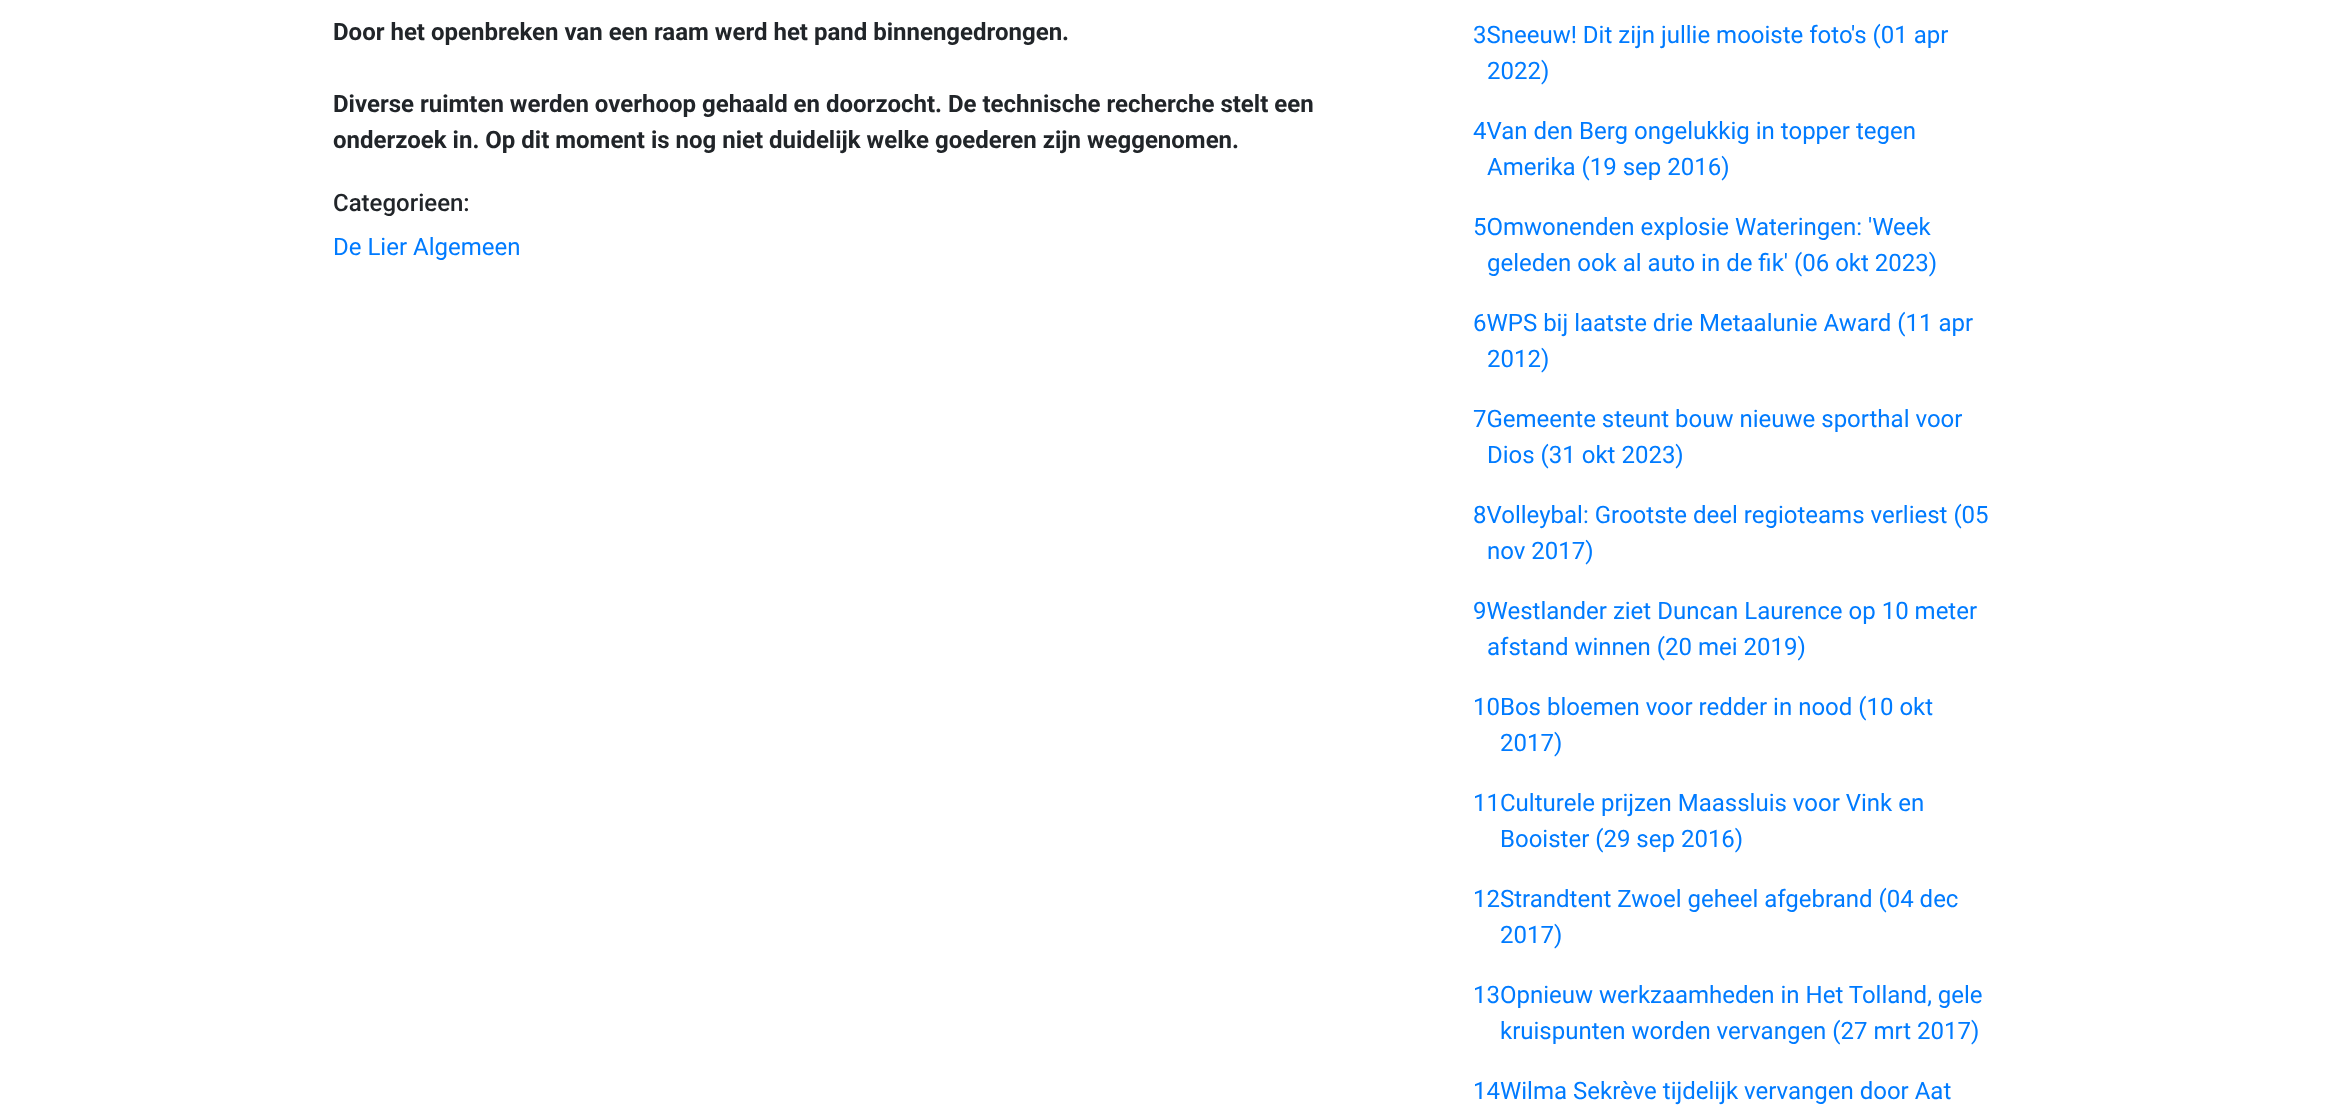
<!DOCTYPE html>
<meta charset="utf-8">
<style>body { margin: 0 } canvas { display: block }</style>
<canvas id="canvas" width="2330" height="1109"></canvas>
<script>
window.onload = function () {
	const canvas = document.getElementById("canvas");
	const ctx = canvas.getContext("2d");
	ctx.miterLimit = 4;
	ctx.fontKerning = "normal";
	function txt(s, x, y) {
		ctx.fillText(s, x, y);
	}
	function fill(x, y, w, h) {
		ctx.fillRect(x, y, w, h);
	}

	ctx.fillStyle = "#FFFFFF";
	fill(0, 0, 2330, 1109);
	ctx.font = "bold 24px Roboto";
	ctx.fillStyle = "#212529";
	txt("Door het openbreken van een raam werd het pand binnengedrongen.", 333, 40);
	txt("Diverse ruimten werden overhoop gehaald en doorzocht. De technische recherche stelt een", 333, 112);
	txt("onderzoek in. Op dit moment is nog niet duidelijk welke goederen zijn weggenomen.", 333, 148);
	ctx.font = "500 24px Roboto";
	txt("Categorieen:", 333, 211);
	ctx.font = "24px Roboto";
	ctx.fillStyle = "#007BFF";
	txt("De Lier Algemeen", 333, 255);
	txt("3Sneeuw! Dit zijn jullie mooiste foto's (01 apr", 1473, 43);
	txt("2022)", 1487, 79);
	txt("4Van den Berg ongelukkig in topper tegen", 1473, 139);
	txt("Amerika (19 sep 2016)", 1487, 175);
	txt("5Omwonenden explosie Wateringen: 'Week", 1473, 235);
	txt("geleden ook al auto in de fik' (06 okt 2023)", 1487, 271);
	txt("6WPS bij laatste drie Metaalunie Award (11 apr", 1473, 331);
	txt("2012)", 1487, 367);
	txt("7Gemeente steunt bouw nieuwe sporthal voor", 1473, 427);
	txt("Dios (31 okt 2023)", 1487, 463);
	txt("8Volleybal: Grootste deel regioteams verliest (05", 1473, 523);
	txt("nov 2017)", 1487, 559);
	txt("9Westlander ziet Duncan Laurence op 10 meter", 1473, 619);
	txt("afstand winnen (20 mei 2019)", 1487, 655);
	txt("10Bos bloemen voor redder in nood (10 okt", 1473, 715);
	txt("2017)", 1500, 751);
	txt("11Culturele prijzen Maassluis voor Vink en", 1473, 811);
	txt("Booister (29 sep 2016)", 1500, 847);
	txt("12Strandtent Zwoel geheel afgebrand (04 dec", 1473, 907);
	txt("2017)", 1500, 943);
	txt("13Opnieuw werkzaamheden in Het Tolland, gele", 1473, 1003);
	txt("kruispunten worden vervangen (27 mrt 2017)", 1500, 1039);
	txt("14Wilma Sekrève tijdelijk vervangen door Aat", 1473, 1099);
};
</script>
